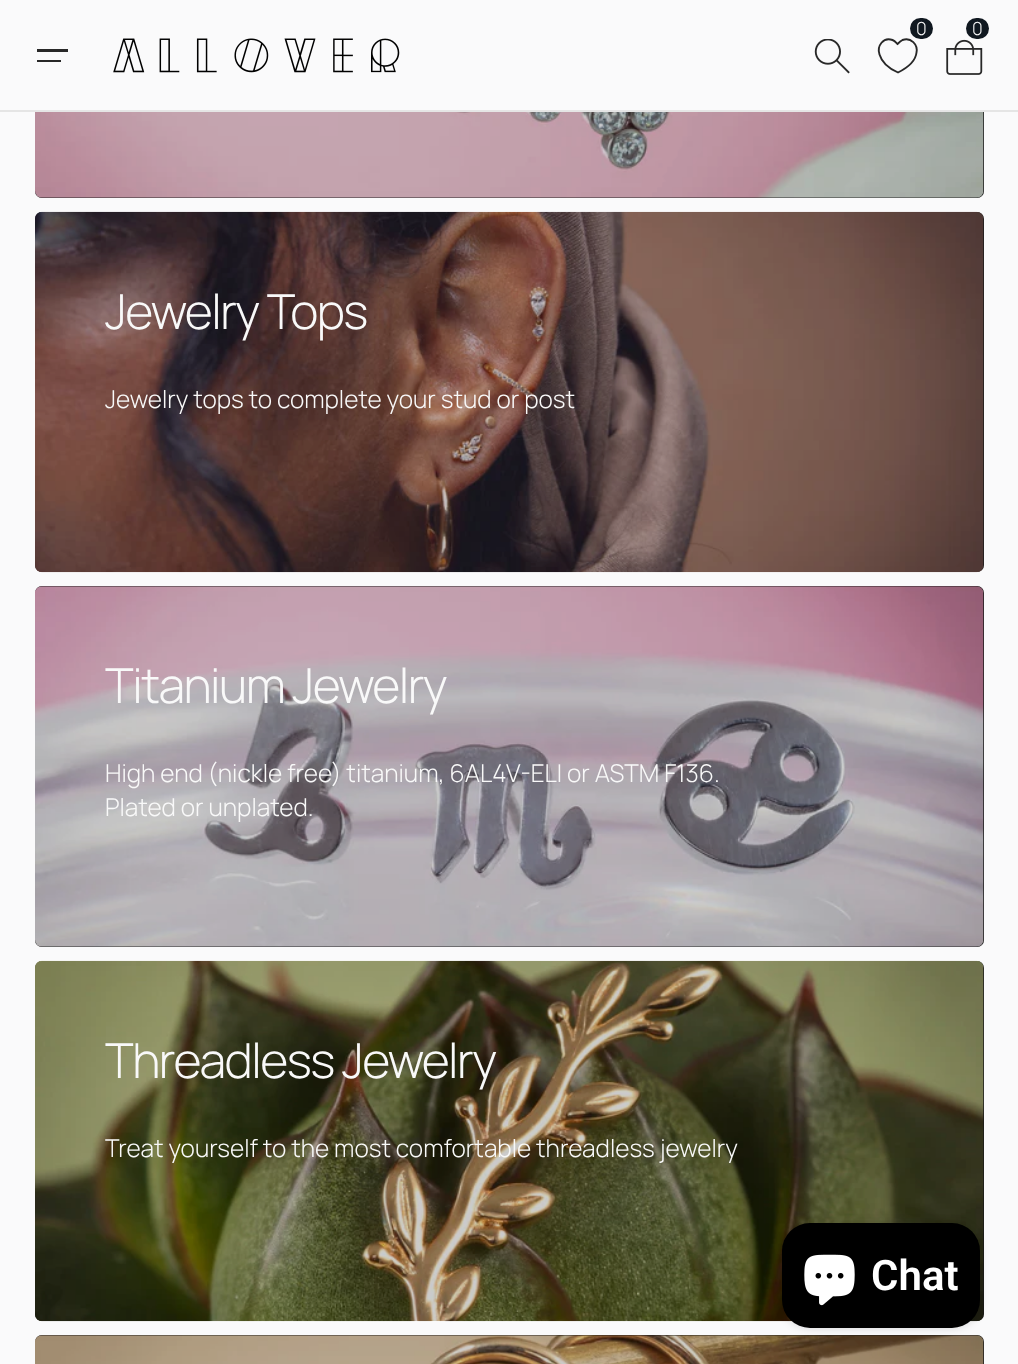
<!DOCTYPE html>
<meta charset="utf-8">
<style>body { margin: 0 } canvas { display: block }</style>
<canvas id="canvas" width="1018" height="1364"></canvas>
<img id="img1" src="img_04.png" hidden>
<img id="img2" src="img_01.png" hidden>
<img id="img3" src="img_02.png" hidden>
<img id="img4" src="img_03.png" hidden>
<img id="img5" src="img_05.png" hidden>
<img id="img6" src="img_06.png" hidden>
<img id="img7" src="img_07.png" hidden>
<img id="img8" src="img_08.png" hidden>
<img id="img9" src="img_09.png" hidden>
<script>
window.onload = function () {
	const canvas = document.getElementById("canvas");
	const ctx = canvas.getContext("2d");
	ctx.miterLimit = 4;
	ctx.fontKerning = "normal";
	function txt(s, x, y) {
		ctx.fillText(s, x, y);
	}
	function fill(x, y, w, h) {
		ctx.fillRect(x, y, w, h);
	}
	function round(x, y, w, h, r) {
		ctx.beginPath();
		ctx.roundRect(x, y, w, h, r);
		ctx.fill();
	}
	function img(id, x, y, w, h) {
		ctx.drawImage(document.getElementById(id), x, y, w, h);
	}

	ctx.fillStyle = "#FAFAFB";
	fill(0, 0, 1018, 1364);
	ctx.fillStyle = "#1F1F1F";
	round(35, -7, 949, 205, 7);
	img("img1", 35, 112, 949, 86);
	ctx.fillStyle = "rgba(0, 0, 0, 0.2)";
	round(35, -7, 949, 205, 7);
	ctx.fillStyle = "#FAFAFB";
	fill(35, 0, 949, 110);
	ctx.beginPath();
	ctx.moveTo(898, 72.5);
	ctx.bezierCurveTo(890, 69, 882, 63, 879.5, 54.5);
	ctx.bezierCurveTo(876.5, 46, 883.5, 36.5, 892.5, 40);
	ctx.bezierCurveTo(895, 41, 896, 42.5, 897.5, 44);
	ctx.bezierCurveTo(899, 42.5, 900.5, 41, 902.5, 40);
	ctx.bezierCurveTo(911, 37, 918, 44.5, 916.5, 52.5);
	ctx.bezierCurveTo(915.5, 62, 906, 68.5, 898, 72.5);
	ctx.closePath();
	ctx.strokeStyle = "#282828";
	ctx.lineWidth = 1.9;
	ctx.stroke();
	ctx.fillStyle = "#101820";
	round(910, 18, 23, 21, 10.5);
	round(966, 18, 23, 21, 10.5);
	img("img2", 946, 39, 37, 36);
	img("img3", 814, 39, 36, 35);
	ctx.fillStyle = "#282828";
	fill(37, 49, 31, 3);
	fill(37, 60, 24, 2);
	img("img4", 113, 38, 287, 35);
	ctx.fillStyle = "#E5E5E5";
	fill(0, 110, 1018, 2);
	ctx.fillStyle = "#1F1F1F";
	round(35, 212, 949, 360, 7);
	img("img5", 35, 211, 949, 362);
	ctx.fillStyle = "rgba(0, 0, 0, 0.2)";
	round(35, 212, 949, 360, 7);
	ctx.fillStyle = "#1F1F1F";
	round(35, 586, 949, 361, 7);
	img("img6", 35, 586, 949, 361);
	ctx.fillStyle = "rgba(0, 0, 0, 0.2)";
	round(35, 586, 949, 361, 7);
	ctx.fillStyle = "#1F1F1F";
	round(35, 961, 949, 360, 7);
	img("img7", 35, 960, 949, 362);
	ctx.fillStyle = "rgba(0, 0, 0, 0.2)";
	round(35, 961, 949, 360, 7);
	ctx.fillStyle = "#1F1F1F";
	round(35, 1335, 949, 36, 7);
	img("img8", 35, 1335, 949, 29);
	ctx.fillStyle = "rgba(0, 0, 0, 0.2)";
	round(35, 1335, 949, 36, 7);
	ctx.fillStyle = "rgba(0, 0, 0, 0.15)";
	ctx.filter = "blur(4.5px)";
	ctx.beginPath();
	ctx.roundRect(782, 1223, 198, 105, 28);
	ctx.fill();
	ctx.filter = "none";
	ctx.fillStyle = "#000000";
	round(782, 1223, 198, 105, 28);
	img("img9", 804, 1254, 51, 52);
	ctx.font = "300 18px Manrope";
	ctx.fillStyle = "#F9F9F9";
	txt("0", 916, 35);
	txt("0", 972, 35);
	ctx.letterSpacing = "-1.5px";
	ctx.font = "300 48.25px Manrope";
	txt("Jewelry Tops", 105, 329);
	ctx.letterSpacing = "0px";
	ctx.font = "300 24.5px Manrope";
	txt("Jewelry tops to complete your stud or post", 105, 408);
	ctx.letterSpacing = "-1.5px";
	ctx.font = "300 48.25px Manrope";
	txt("Titanium Jewelry", 105, 703);
	ctx.letterSpacing = "0px";
	ctx.font = "300 24.5px Manrope";
	txt("High end (nickle free) titanium, 6AL4V-ELI or ASTM F136.", 105, 782);
	txt("Plated or unplated.", 105, 816);
	ctx.letterSpacing = "-1.5px";
	ctx.font = "300 48.25px Manrope";
	txt("Threadless Jewelry", 105, 1078);
	ctx.letterSpacing = "0px";
	ctx.font = "300 24.5px Manrope";
	txt("Treat yourself to the most comfortable threadless jewelry", 105, 1157);
	ctx.font = "600 42px Roboto";
	ctx.fillStyle = "#FFFFFF";
	txt("Chat", 871, 1290);
};
</script>
